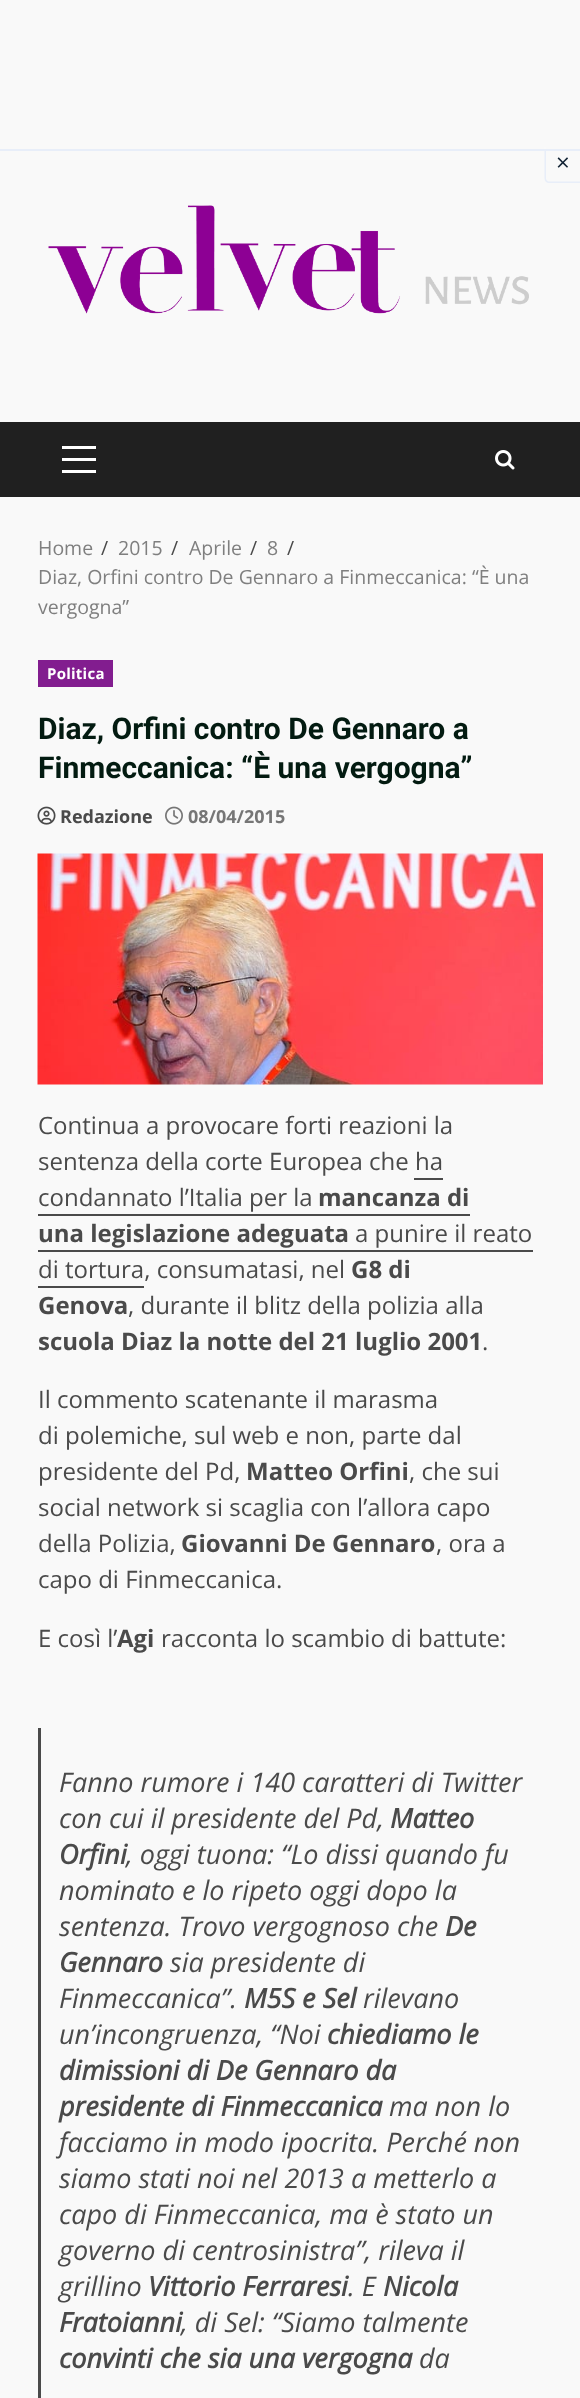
<!DOCTYPE html>
<meta charset="utf-8">
<style>body { margin: 0 } canvas { display: block }</style>
<canvas id="canvas" width="580" height="2398"></canvas>
<img id="img1" src="img_01.png" hidden>
<img id="img2" src="img_02.png" hidden>
<img id="img3" src="img_03.png" hidden>
<img id="img4" src="img_04.png" hidden>
<img id="img5" src="img_05.png" hidden>
<script>
window.onload = function () {
	const canvas = document.getElementById("canvas");
	const ctx = canvas.getContext("2d");
	ctx.miterLimit = 4;
	ctx.fontKerning = "normal";
	function txt(s, x, y) {
		ctx.fillText(s, x, y);
	}
	function fill(x, y, w, h) {
		ctx.fillRect(x, y, w, h);
	}
	function img(id, x, y, w, h) {
		ctx.drawImage(document.getElementById(id), x, y, w, h);
	}

	ctx.fillStyle = "#F9F9F9";
	fill(0, 0, 580, 2398);
	ctx.fillStyle = "#E8EEF9";
	ctx.beginPath();
	ctx.moveTo(544.5, 147);
	ctx.lineTo(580.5, 147);
	ctx.lineTo(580.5, 183);
	ctx.lineTo(549, 183);
	ctx.bezierCurveTo(546.5, 183, 544.5, 181, 544.5, 178.5);
	ctx.closePath();
	ctx.moveTo(546, 147);
	ctx.lineTo(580.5, 147);
	ctx.lineTo(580.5, 181.5);
	ctx.lineTo(549, 181.5);
	ctx.bezierCurveTo(547.5, 181.5, 546, 180, 546, 178.5);
	ctx.closePath();
	ctx.fill("evenodd");
	ctx.fillStyle = "#FAFAFA";
	fill(544, 147, 2, 2);
	ctx.fillStyle = "#E8EEF9";
	fill(0, 149, 580, 2);
	img("img1", 48, 205, 481, 109);
	ctx.fillStyle = "#202020";
	fill(0, 422, 580, 75);
	ctx.fillStyle = "#FFFFFF";
	fill(62, 458, 34, 3);
	fill(62, 446, 34, 3);
	fill(62, 470, 34, 3);
	img("img2", 495, 450, 20, 20);
	ctx.fillStyle = "#821D8F";
	fill(38, 660, 75, 27);
	img("img3", 37, 806, 19, 19);
	img("img4", 165, 806, 18, 19);
	img("img5", 37, 853, 506, 232);
	ctx.fillStyle = "#4A4A4A";
	fill(38, 1214, 432, 2);
	fill(414, 1178, 29, 2);
	fill(38, 1250, 495, 2);
	fill(38, 1286, 106, 2);
	fill(38, 1728, 3, 670);
	ctx.font = "24px Open Sans";
	ctx.fillStyle = "#112233";
	txt("×", 556, 171);
	ctx.font = "19.5px Open Sans";
	ctx.fillStyle = "#7F7F7F";
	txt("Home", 38, 555);
	ctx.fillStyle = "#4A4A4A";
	txt("/", 101, 555);
	ctx.fillStyle = "#7F7F7F";
	txt("2015", 118, 555);
	ctx.fillStyle = "#4A4A4A";
	txt("/", 171, 555);
	ctx.fillStyle = "#7F7F7F";
	txt("Aprile", 189, 555);
	ctx.fillStyle = "#4A4A4A";
	txt("/", 250, 555);
	ctx.fillStyle = "#7F7F7F";
	txt("8", 267, 555);
	ctx.fillStyle = "#4A4A4A";
	txt("/", 287, 555);
	ctx.fillStyle = "#7F7F7F";
	txt("Diaz, Orfini contro De Gennaro a Finmeccanica: “È una", 38, 584);
	txt("vergogna”", 38, 614);
	ctx.letterSpacing = "0.25px";
	ctx.font = "bold 15px Open Sans";
	ctx.fillStyle = "#FFFFFF";
	txt("Politica", 47, 679);
	ctx.letterSpacing = "0px";
	ctx.font = "bold 30px Roboto";
	ctx.fillStyle = "#031B11";
	txt("Diaz, Orfini contro De Gennaro a", 38, 739);
	txt("Finmeccanica: “È una vergogna”", 38, 778);
	ctx.font = "bold 18px Open Sans";
	ctx.fillStyle = "#4A4A4A";
	txt("Redazione", 60, 823);
	ctx.fillStyle = "#767676";
	txt("08/04/2015", 188, 823);
	ctx.font = "24px Open Sans";
	ctx.fillStyle = "#4A4A4A";
	txt("Continua a provocare forti reazioni la", 38, 1134);
	txt("sentenza della corte Europea che ha", 38, 1170);
	txt("condannato l’Italia per la", 38, 1206);
	ctx.font = "bold 24px Open Sans";
	txt("mancanza di", 318, 1206);
	txt("una legislazione adeguata", 38, 1242);
	ctx.font = "24px Open Sans";
	txt("a punire il reato", 355, 1242);
	txt("di tortura, consumatasi, nel", 38, 1278);
	ctx.font = "bold 24px Open Sans";
	txt("G8 di", 351, 1278);
	txt("Genova", 38, 1314);
	ctx.font = "24px Open Sans";
	txt(", durante il blitz della polizia alla", 128, 1314);
	ctx.font = "bold 24px Open Sans";
	txt("scuola Diaz la notte del 21 luglio 2001", 38, 1350);
	ctx.font = "24px Open Sans";
	txt(".", 482, 1350);
	txt("Il commento scatenante il marasma", 38, 1408);
	txt("di polemiche, sul web e non, parte dal", 38, 1444);
	txt("presidente del Pd,", 38, 1480);
	ctx.font = "bold 24px Open Sans";
	txt("Matteo Orfini", 246, 1480);
	ctx.font = "24px Open Sans";
	txt(", che sui", 409, 1480);
	txt("social network si scaglia con l’allora capo", 38, 1516);
	txt("della Polizia,", 38, 1552);
	ctx.font = "bold 24px Open Sans";
	txt("Giovanni De Gennaro", 181, 1552);
	ctx.font = "24px Open Sans";
	txt(", ora a", 436, 1552);
	txt("capo di Finmeccanica.", 38, 1588);
	txt("E così l’", 38, 1647);
	ctx.font = "bold 24px Open Sans";
	txt("Agi", 117, 1647);
	ctx.font = "24px Open Sans";
	txt("racconta lo scambio di battute:", 161, 1647);
	ctx.font = "italic 27px Open Sans";
	txt("Fanno rumore i 140 caratteri di Twitter", 59, 1792);
	txt("con cui il presidente del Pd,", 59, 1828);
	ctx.font = "italic bold 27px Open Sans";
	txt("Matteo", 390, 1828);
	txt("Orfini", 59, 1864);
	ctx.font = "italic 27px Open Sans";
	txt(", oggi tuona: “Lo dissi quando fu", 126, 1864);
	txt("nominato e lo ripeto oggi dopo la", 59, 1900);
	txt("sentenza. Trovo vergognoso che", 59, 1936);
	ctx.font = "italic bold 27px Open Sans";
	txt("De", 445, 1936);
	txt("Gennaro", 59, 1972);
	ctx.font = "italic 27px Open Sans";
	txt("sia presidente di", 170, 1972);
	txt("Finmeccanica”.", 59, 2008);
	ctx.font = "italic bold 27px Open Sans";
	txt("M5S e Sel", 244, 2008);
	ctx.font = "italic 27px Open Sans";
	txt("rilevano", 363, 2008);
	txt("un’incongruenza, “Noi", 59, 2044);
	ctx.font = "italic bold 27px Open Sans";
	txt("chiediamo le", 327, 2044);
	txt("dimissioni di De Gennaro da", 59, 2080);
	txt("presidente di Finmeccanica", 59, 2116);
	ctx.font = "italic 27px Open Sans";
	txt("ma non lo", 389, 2116);
	txt("facciamo in modo ipocrita. Perché non", 59, 2152);
	txt("siamo stati noi nel 2013 a metterlo a", 59, 2188);
	txt("capo di Finmeccanica, ma è stato un", 59, 2224);
	txt("governo di centrosinistra”, rileva il", 59, 2260);
	txt("grillino", 59, 2296);
	ctx.font = "italic bold 27px Open Sans";
	txt("Vittorio Ferraresi", 148, 2296);
	ctx.font = "italic 27px Open Sans";
	txt(". E", 348, 2296);
	ctx.font = "italic bold 27px Open Sans";
	txt("Nicola", 383, 2296);
	txt("Fratoianni", 59, 2332);
	ctx.font = "italic 27px Open Sans";
	txt(", di Sel: “Siamo talmente", 181, 2332);
	ctx.font = "italic bold 27px Open Sans";
	txt("convinti che sia una vergogna", 59, 2368);
	ctx.font = "italic 27px Open Sans";
	txt("da", 419, 2368);
};
</script>
